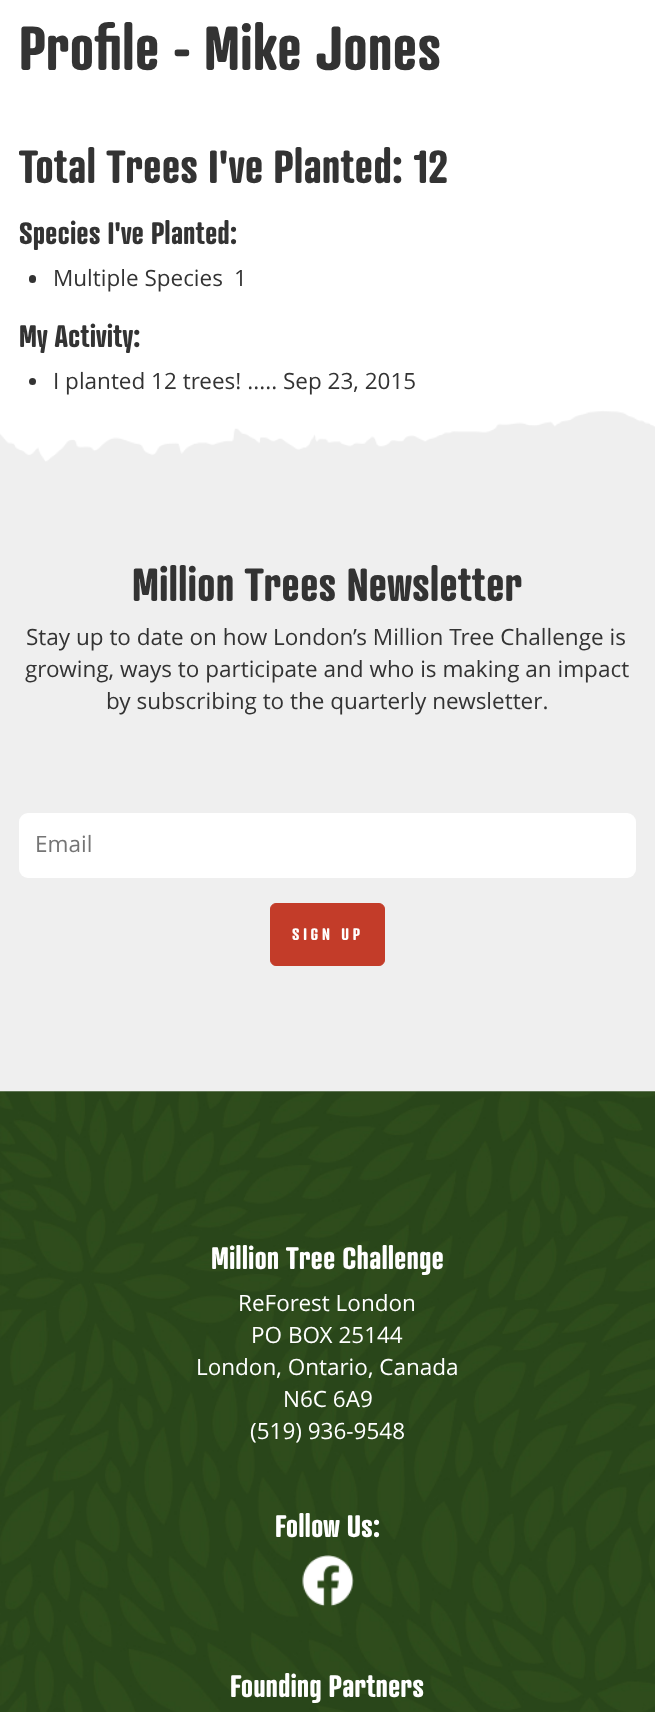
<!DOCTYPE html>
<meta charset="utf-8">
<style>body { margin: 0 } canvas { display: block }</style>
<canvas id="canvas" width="655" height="1712"></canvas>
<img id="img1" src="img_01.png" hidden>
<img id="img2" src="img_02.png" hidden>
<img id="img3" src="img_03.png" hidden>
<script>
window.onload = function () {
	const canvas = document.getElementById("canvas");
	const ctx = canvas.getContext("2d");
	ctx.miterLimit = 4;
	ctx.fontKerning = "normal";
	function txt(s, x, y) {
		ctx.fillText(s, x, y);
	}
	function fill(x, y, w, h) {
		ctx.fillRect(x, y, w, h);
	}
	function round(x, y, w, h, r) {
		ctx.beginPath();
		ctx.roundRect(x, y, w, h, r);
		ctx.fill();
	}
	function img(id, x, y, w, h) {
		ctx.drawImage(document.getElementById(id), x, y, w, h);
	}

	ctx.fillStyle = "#FFFFFF";
	fill(0, 0, 655, 1712);
	ctx.fillStyle = "#333333";
	round(29, 275, 7, 8, 3.5);
	ctx.beginPath();
	ctx.arc(32.5, 381.5, 3.5, 0, Math.PI * 2);
	ctx.fill();
	ctx.fillStyle = "#EFEFEF";
	fill(0, 410, 655, 681);
	img("img1", 0, 410, 655, 52);
	ctx.fillStyle = "#FFFFFF";
	round(19, 813, 617, 65, 9);
	ctx.fillStyle = "#C33C29";
	ctx.beginPath();
	ctx.roundRect(270.5, 903.5, 114, 62, 5.5);
	ctx.fill();
	ctx.strokeStyle = "#C33C29";
	ctx.stroke();
	img("img2", 0, 1091, 655, 621);
	img("img3", 302, 1555, 52, 52);
	ctx.font = "bold 60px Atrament";
	ctx.fillStyle = "#333333";
	txt("Profile - Mike Jones", 19, 70);
	ctx.font = "bold 45px Atrament";
	txt("Total Trees I've Planted: 12", 19, 183);
	ctx.font = "bold 30px Atrament";
	txt("Species I've Planted:", 19, 244);
	ctx.font = "22.5px Open Sans";
	txt("Multiple Species", 53, 286);
	txt("1", 234, 286);
	ctx.font = "bold 30px Atrament";
	txt("My Activity:", 19, 347);
	ctx.font = "22.5px Open Sans";
	txt("I planted 12 trees! ..... Sep 23, 2015", 53, 389);
	ctx.font = "bold 45px Atrament";
	txt("Million Trees Newsletter", 132, 601);
	ctx.font = "22.5px Open Sans";
	txt("Stay up to date on how London’s Million Tree Challenge is", 26, 645);
	txt("growing, ways to participate and who is making an impact", 25, 677);
	txt("by subscribing to the quarterly newsletter.", 106, 709);
	ctx.fillStyle = "#757575";
	txt("Email", 35, 852);
	ctx.letterSpacing = "3.75px";
	ctx.font = "bold 16.25px Atrament";
	ctx.fillStyle = "#FFFFFF";
	txt("SIGN UP", 292, 940);
	ctx.letterSpacing = "0px";
	ctx.font = "bold 30px Atrament";
	txt("Million Tree Challenge", 211, 1269);
	ctx.font = "22.5px Open Sans";
	txt("ReForest London", 238, 1311);
	txt("PO BOX 25144", 251, 1343);
	txt("London, Ontario, Canada", 196, 1375);
	txt("N6C 6A9", 283, 1407);
	txt("(519) 936-9548", 250, 1439);
	ctx.font = "bold 30px Atrament";
	txt("Follow Us:", 275, 1537);
	txt("Founding Partners", 230, 1697);
};
</script>
